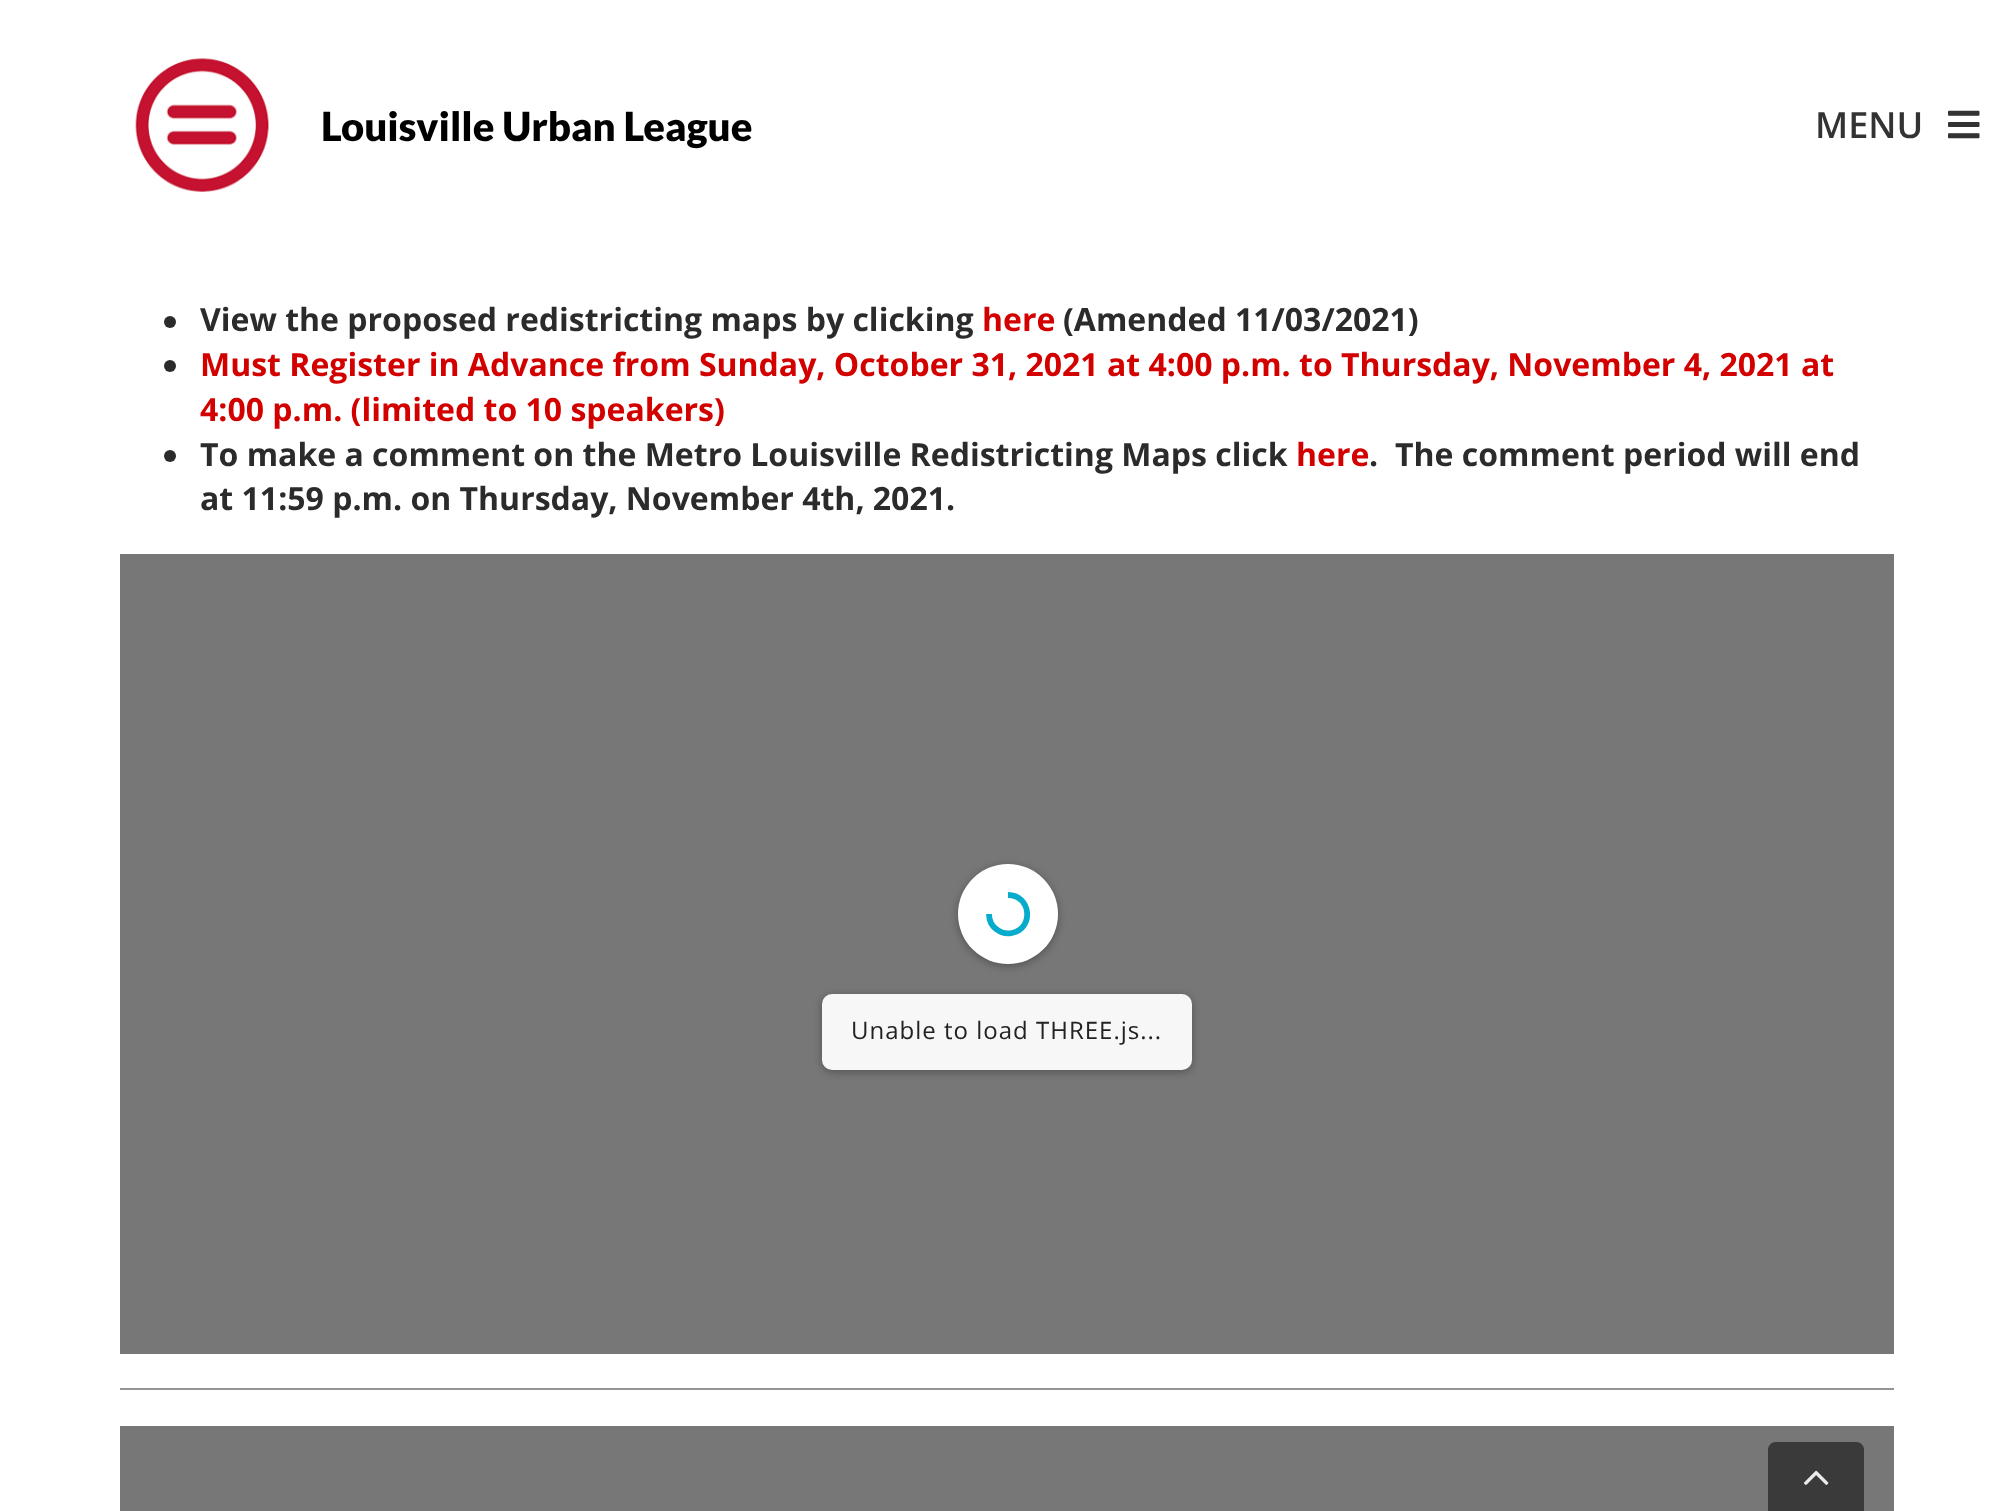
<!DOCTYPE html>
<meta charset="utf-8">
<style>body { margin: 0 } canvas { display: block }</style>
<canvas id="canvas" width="2013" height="1511"></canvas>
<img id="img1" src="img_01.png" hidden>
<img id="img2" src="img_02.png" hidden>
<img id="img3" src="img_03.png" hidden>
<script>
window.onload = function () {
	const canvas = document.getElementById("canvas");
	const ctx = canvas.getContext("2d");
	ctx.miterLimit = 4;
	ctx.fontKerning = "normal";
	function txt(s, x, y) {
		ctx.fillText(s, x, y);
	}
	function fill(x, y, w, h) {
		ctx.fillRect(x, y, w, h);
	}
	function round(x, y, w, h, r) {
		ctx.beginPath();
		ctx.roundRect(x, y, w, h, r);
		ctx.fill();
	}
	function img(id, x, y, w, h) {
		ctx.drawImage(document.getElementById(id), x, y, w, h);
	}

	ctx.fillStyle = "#FFFFFF";
	fill(0, 0, 2013, 1511);
	img("img1", 135, 58, 134, 134);
	img("img2", 1948, 110, 32, 29);
	ctx.fillStyle = "#2B2B2B";
	ctx.beginPath();
	ctx.arc(170, 322, 6, 0, Math.PI * 2);
	ctx.fill();
	ctx.beginPath();
	ctx.arc(170, 366, 6, 0, Math.PI * 2);
	ctx.fill();
	ctx.beginPath();
	ctx.arc(170, 456, 6, 0, Math.PI * 2);
	ctx.fill();
	ctx.fillStyle = "#777777";
	fill(120, 554, 1774, 800);
	ctx.fillStyle = "rgba(0, 0, 0, 0.3)";
	ctx.filter = "blur(4px)";
	ctx.beginPath();
	ctx.roundRect(958, 866, 100, 100, 50);
	ctx.fill();
	ctx.filter = "none";
	ctx.fillStyle = "#FFFFFF";
	ctx.beginPath();
	ctx.arc(1008, 914, 50, 0, Math.PI * 2);
	ctx.fill();
	ctx.beginPath();
	ctx.moveTo(1008, 895);
	ctx.bezierCurveTo(1031, 895, 1034.5, 928.5, 1012, 933);
	ctx.bezierCurveTo(1007, 934, 1001.5, 933, 997.5, 930);
	ctx.bezierCurveTo(992, 926.5, 989, 920.5, 989, 914);
	ctx.strokeStyle = "#07ABCC";
	ctx.lineWidth = 5.8;
	ctx.stroke();
	ctx.fillStyle = "rgba(0, 0, 0, 0.3)";
	ctx.filter = "blur(4px)";
	ctx.beginPath();
	ctx.roundRect(822, 996, 370, 76, 10);
	ctx.fill();
	ctx.filter = "none";
	ctx.fillStyle = "#F7F7F7";
	round(822, 994, 370, 76, 10);
	ctx.fillStyle = "#969494";
	fill(120, 1388, 1774, 2);
	ctx.fillStyle = "#777777";
	fill(120, 1426, 1774, 85);
	ctx.fillStyle = "#3A3A3A";
	ctx.beginPath();
	ctx.moveTo(1776, 1442);
	ctx.lineTo(1856, 1442);
	ctx.bezierCurveTo(1860.5, 1442, 1864, 1445.5, 1864, 1450);
	ctx.lineTo(1864, 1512);
	ctx.lineTo(1768, 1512);
	ctx.lineTo(1768, 1450);
	ctx.bezierCurveTo(1768, 1445.5, 1771.5, 1442, 1776, 1442);
	ctx.closePath();
	ctx.fill();
	img("img3", 1804, 1470, 25, 15);
	ctx.font = "900 40px Lato";
	ctx.fillStyle = "#000000";
	txt("Louisville Urban League", 321, 141);
	ctx.font = "600 36px Open Sans";
	ctx.fillStyle = "#333333";
	txt("MENU", 1815, 138);
	ctx.font = "bold 32px Open Sans";
	ctx.fillStyle = "#2B2B2B";
	txt("View the proposed redistricting maps by clicking", 200, 331);
	ctx.fillStyle = "#D30000";
	txt("here", 982, 331);
	ctx.fillStyle = "#2B2B2B";
	txt("(Amended 11/03/2021)", 1063, 331);
	ctx.fillStyle = "#D30000";
	txt("Must Register in Advance from Sunday, October 31, 2021 at 4:00 p.m. to Thursday, November 4, 2021 at", 200, 376);
	txt("4:00 p.m. (limited to 10 speakers)", 200, 421);
	ctx.fillStyle = "#2B2B2B";
	txt("To make a comment on the Metro Louisville Redistricting Maps click", 200, 466);
	ctx.fillStyle = "#D30000";
	txt("here", 1296, 466);
	ctx.fillStyle = "#2B2B2B";
	txt("The comment period will end", 1395, 466);
	txt(".", 1369, 466);
	txt("at 11:59 p.m. on Thursday, November 4th, 2021.", 200, 510);
	ctx.letterSpacing = "1px";
	ctx.font = "24px Open Sans";
	ctx.fillStyle = "#222222";
	txt("Unable to load THREE.js...", 851, 1039);
};
</script>
